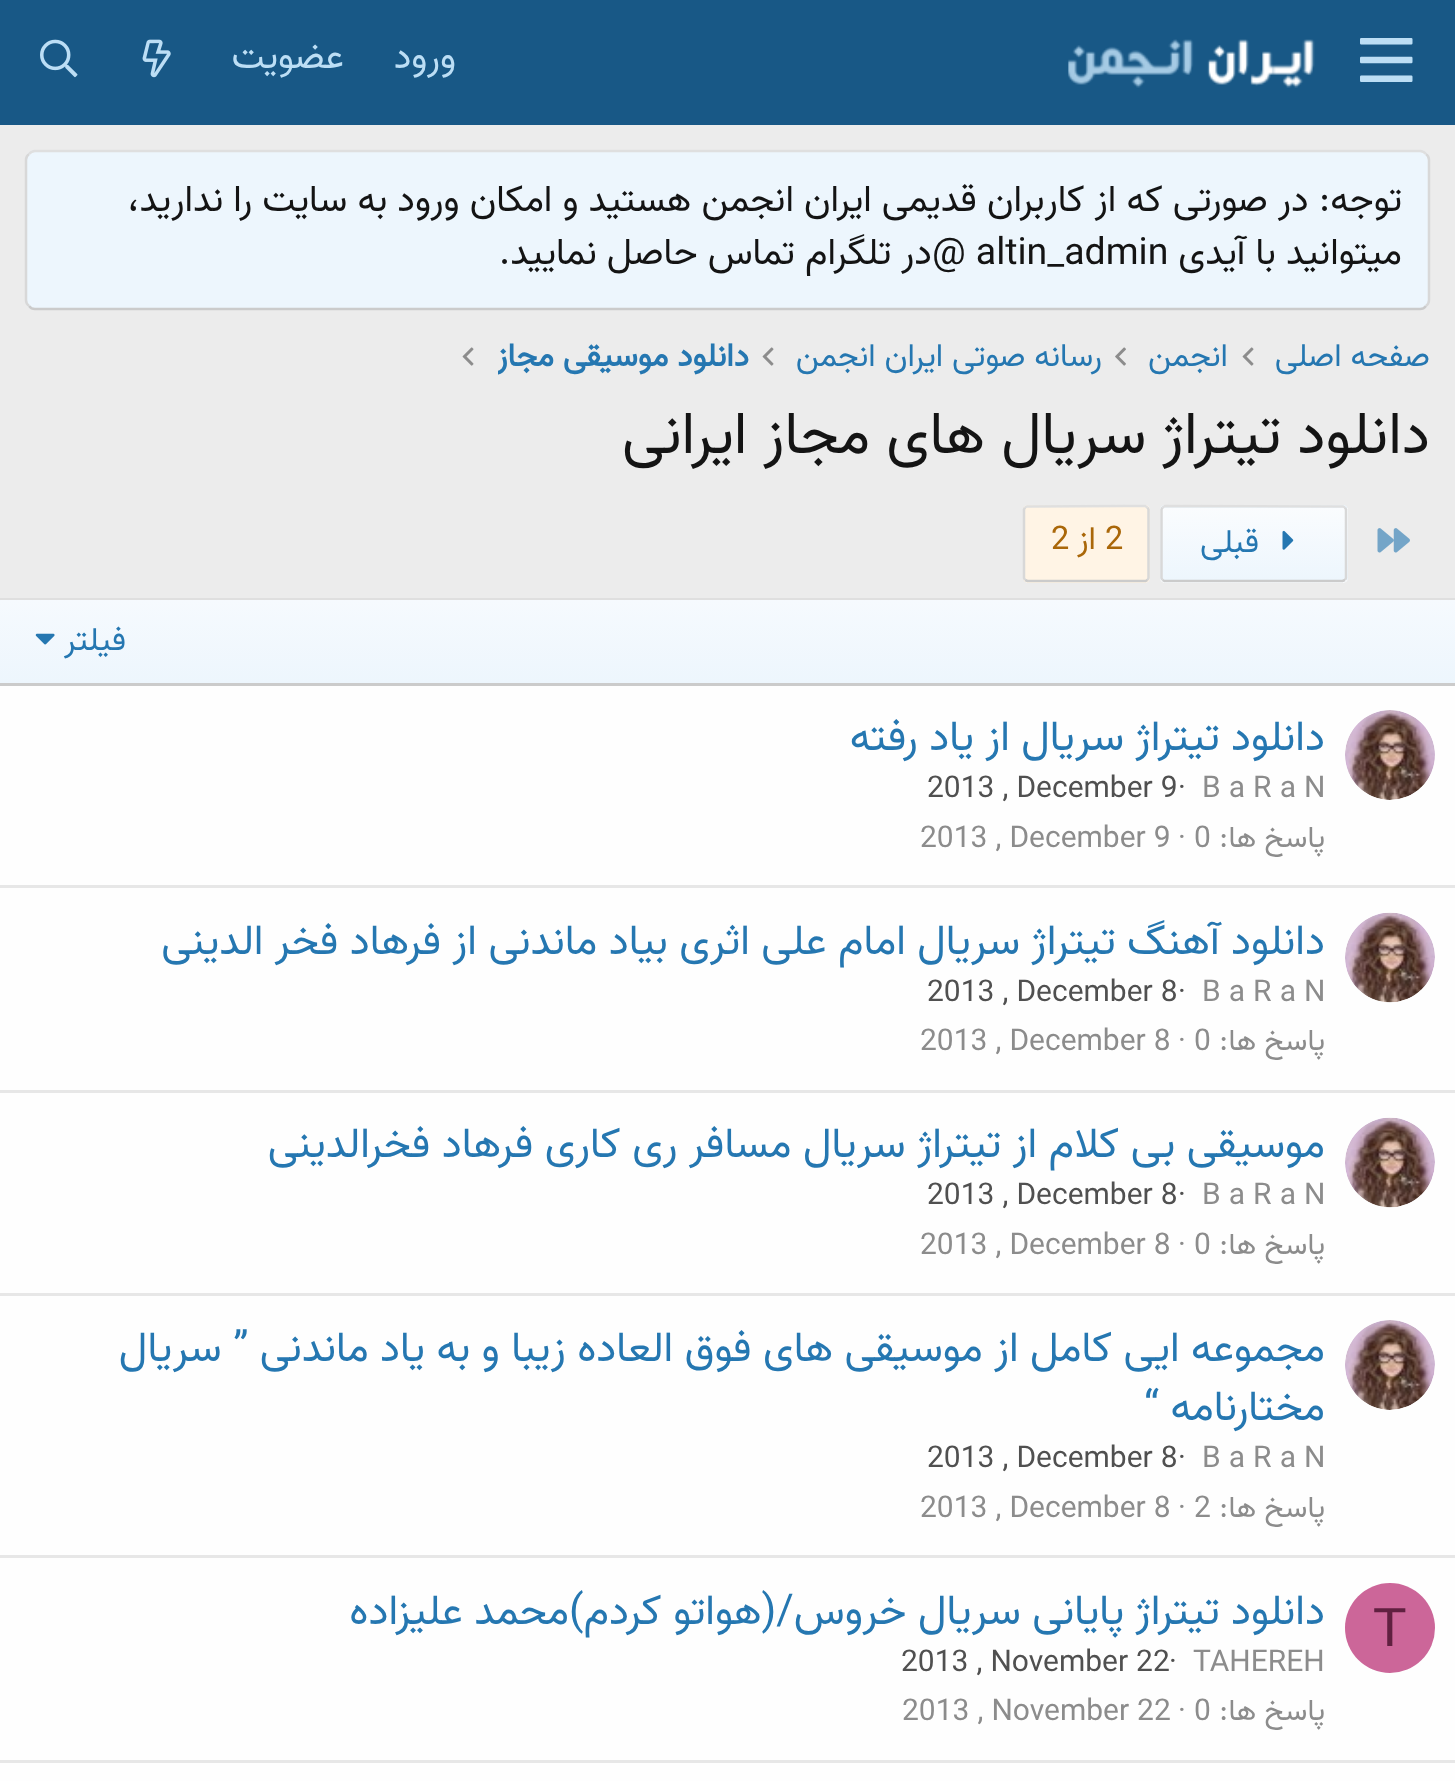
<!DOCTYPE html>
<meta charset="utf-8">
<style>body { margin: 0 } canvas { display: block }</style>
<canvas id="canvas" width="1455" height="1781"></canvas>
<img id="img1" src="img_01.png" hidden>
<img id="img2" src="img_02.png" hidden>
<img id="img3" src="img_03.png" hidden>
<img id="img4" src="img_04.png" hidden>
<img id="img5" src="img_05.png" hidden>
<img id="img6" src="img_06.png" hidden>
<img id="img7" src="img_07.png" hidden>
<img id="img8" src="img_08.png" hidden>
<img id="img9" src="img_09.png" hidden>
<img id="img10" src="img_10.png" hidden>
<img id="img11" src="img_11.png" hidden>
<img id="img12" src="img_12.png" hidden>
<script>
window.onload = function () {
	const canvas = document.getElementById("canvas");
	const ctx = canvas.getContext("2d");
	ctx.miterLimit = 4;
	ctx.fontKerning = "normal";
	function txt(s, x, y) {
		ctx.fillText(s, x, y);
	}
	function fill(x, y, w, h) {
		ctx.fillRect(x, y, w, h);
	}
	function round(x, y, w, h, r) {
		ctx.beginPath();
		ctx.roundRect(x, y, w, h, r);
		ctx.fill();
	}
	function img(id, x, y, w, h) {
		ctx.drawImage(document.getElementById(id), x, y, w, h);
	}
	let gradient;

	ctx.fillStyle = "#ECECEC";
	fill(0, 0, 1455, 1781);
	ctx.fillStyle = "#185886";
	fill(0, 0, 1455, 125);
	img("img1", 1360, 38, 53, 44);
	img("img2", 1068, 39, 247, 49);
	img("img3", 142, 39, 29, 39);
	img("img4", 40, 39, 38, 39);
	ctx.fillStyle = "#EDF6FD";
	round(25, 150, 1405, 160, 10);
	ctx.beginPath();
	ctx.moveTo(29, 154);
	ctx.bezierCurveTo(30.5, 152, 32.5, 151, 35, 151);
	ctx.lineTo(1420, 151);
	ctx.bezierCurveTo(1422.5, 151, 1424.5, 152, 1426, 154);
	ctx.strokeStyle = "#DFDFDF";
	ctx.lineWidth = 2.5;
	ctx.stroke();
	ctx.beginPath();
	ctx.moveTo(1426, 154);
	ctx.bezierCurveTo(1428, 155.5, 1429, 157.5, 1429, 160);
	ctx.lineTo(1429, 300);
	ctx.bezierCurveTo(1429, 302.5, 1428, 304.5, 1426, 306);
	ctx.strokeStyle = "#D8D8D8";
	ctx.stroke();
	ctx.beginPath();
	ctx.moveTo(1426, 306);
	ctx.bezierCurveTo(1424.5, 308, 1422.5, 309, 1420, 309);
	ctx.lineTo(35, 309);
	ctx.bezierCurveTo(32.5, 309, 30.5, 308, 29, 306);
	ctx.strokeStyle = "#CBCBCB";
	ctx.stroke();
	ctx.beginPath();
	ctx.moveTo(29, 306);
	ctx.bezierCurveTo(27, 304.5, 26, 302.5, 26, 300);
	ctx.lineTo(26, 160);
	ctx.bezierCurveTo(26, 157.5, 27, 155.5, 29, 154);
	ctx.strokeStyle = "#D8D8D8";
	ctx.stroke();
	img("img5", 1242, 347, 12, 19);
	img("img6", 1115, 347, 11, 19);
	img("img5", 762, 347, 12, 19);
	img("img5", 462, 347, 12, 19);
	img("img7", 1377, 528, 33, 25);
	ctx.save();
	ctx.beginPath();
	ctx.roundRect(1160, 505, 188, 78, 5);
	ctx.clip();
	gradient = ctx.createLinearGradient(1254, 508, 1254, 435);
	gradient.addColorStop(0, "#EDF6FD");
	gradient.addColorStop(1, "#FAFCFE");
	ctx.fillStyle = gradient;
	fill(1160, 505, 188, 3);
	gradient = ctx.createLinearGradient(1254, 580, 1254, 508);
	gradient.addColorStop(0, "#EDF6FD");
	gradient.addColorStop(1, "#FAFCFE");
	ctx.fillStyle = gradient;
	fill(1160, 508, 188, 72);
	gradient = ctx.createLinearGradient(1254, 653, 1254, 580);
	gradient.addColorStop(0, "#EDF6FD");
	gradient.addColorStop(1, "#FAFCFE");
	ctx.fillStyle = gradient;
	fill(1160, 580, 188, 3);
	ctx.restore();
	ctx.beginPath();
	ctx.moveTo(1162.5, 507.5);
	ctx.lineTo(1165, 506);
	ctx.lineTo(1343, 506.5);
	ctx.lineTo(1345, 507.5);
	ctx.strokeStyle = "#DFDFDF";
	ctx.stroke();
	ctx.beginPath();
	ctx.moveTo(1345, 507.5);
	ctx.lineTo(1346, 509.5);
	ctx.lineTo(1346, 578);
	ctx.lineTo(1345, 580);
	ctx.strokeStyle = "#D8D8D8";
	ctx.stroke();
	ctx.beginPath();
	ctx.moveTo(1345, 580);
	ctx.lineTo(1342.5, 581);
	ctx.lineTo(1164.5, 581);
	ctx.lineTo(1162.5, 580);
	ctx.strokeStyle = "#CBCBCB";
	ctx.stroke();
	ctx.beginPath();
	ctx.moveTo(1162.5, 580);
	ctx.lineTo(1161.5, 578);
	ctx.lineTo(1161.5, 509.5);
	ctx.lineTo(1162.5, 507.5);
	ctx.strokeStyle = "#D8D8D8";
	ctx.stroke();
	img("img8", 1282, 530, 12, 20);
	ctx.fillStyle = "#FFF4E5";
	round(1023, 505, 127, 78, 5);
	ctx.beginPath();
	ctx.moveTo(1025, 507.5);
	ctx.lineTo(1027, 506.5);
	ctx.lineTo(1125.5, 506);
	ctx.lineTo(1145, 506);
	ctx.lineTo(1147.5, 507.5);
	ctx.strokeStyle = "#DFDFDF";
	ctx.stroke();
	ctx.beginPath();
	ctx.moveTo(1147.5, 507.5);
	ctx.lineTo(1148.5, 509.5);
	ctx.lineTo(1148.5, 578);
	ctx.lineTo(1147.5, 580);
	ctx.strokeStyle = "#D8D8D8";
	ctx.stroke();
	ctx.beginPath();
	ctx.moveTo(1147.5, 580);
	ctx.lineTo(1145.5, 581);
	ctx.lineTo(1047, 581);
	ctx.lineTo(1027.5, 581);
	ctx.lineTo(1025, 580);
	ctx.strokeStyle = "#CBCBCB";
	ctx.stroke();
	ctx.beginPath();
	ctx.moveTo(1025, 580);
	ctx.lineTo(1024, 578);
	ctx.lineTo(1024, 509.5);
	ctx.lineTo(1025, 507.5);
	ctx.strokeStyle = "#D8D8D8";
	ctx.stroke();
	ctx.fillStyle = "#FEFEFE";
	fill(0, 686, 1455, 1095);
	ctx.fillStyle = "#DFDFDF";
	fill(0, 598, 1455, 2);
	gradient = ctx.createLinearGradient(728, 683, 728, 600);
	gradient.addColorStop(0, "#EDF6FD");
	gradient.addColorStop(1, "#F6FAFE");
	ctx.fillStyle = gradient;
	fill(0, 600, 1455, 83);
	ctx.fillStyle = "#CBCBCB";
	fill(0, 683, 1455, 3);
	img("img9", 35, 633, 20, 12);
	img("img10", 1345, 710, 90, 90);
	ctx.fillStyle = "#E7E7E7";
	fill(0, 885, 1455, 3);
	img("img11", 1345, 912, 90, 91);
	fill(0, 1090, 1455, 3);
	img("img11", 1345, 1117, 90, 91);
	fill(0, 1293, 1455, 3);
	img("img12", 1345, 1320, 90, 90);
	fill(0, 1555, 1455, 3);
	ctx.fillStyle = "#CC6699";
	ctx.beginPath();
	ctx.arc(1390, 1628, 45, 0, Math.PI * 2);
	ctx.fill();
	ctx.fillStyle = "#E7E7E7";
	fill(0, 1760, 1455, 3);
	ctx.direction = "rtl";
	ctx.font = "37.5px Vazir";
	ctx.fillStyle = "#BCDEF5";
	txt("ورود", 456, 68);
	txt("عضویت", 344, 68);
	ctx.fillStyle = "#141414";
	txt("توجه: در صورتی که از کاربران قدیمی ایران انجمن هستید و امکان ورود به سایت را ندارید،", 1402, 211);
	txt("میتوانید با آیدی", 1402, 264);
	ctx.direction = "ltr";
	txt("@ altin_admin", 932, 264);
	ctx.direction = "rtl";
	txt("در تلگرام تماس حاصل نمایید.", 932, 264);
	ctx.font = "32.5px Vazir";
	ctx.fillStyle = "#2577B1";
	txt("صفحه اصلی", 1430, 366);
	txt("انجمن", 1228, 366);
	txt("رسانه صوتی ایران انجمن", 1102, 366);
	ctx.save();
	ctx.beginPath();
	ctx.rect(498, 335, 252, 48);
	ctx.clip();
	ctx.font = "bold 32.5px Vazir";
	txt("دانلود موسیقی مجاز", 749, 366);
	ctx.restore();
	ctx.font = "60px Vazir";
	ctx.fillStyle = "#141414";
	txt("دانلود تیتراژ سریال های مجاز ایرانی", 1430, 453);
	ctx.font = "32.5px Vazir";
	ctx.fillStyle = "#2577B1";
	txt("قبلی", 1259, 552);
	ctx.direction = "ltr";
	ctx.fillStyle = "#AA6709";
	txt("2", 1105, 549);
	ctx.direction = "rtl";
	txt("از", 1096, 549);
	ctx.direction = "ltr";
	txt("2", 1051, 549);
	ctx.direction = "rtl";
	ctx.fillStyle = "#2577B1";
	txt("فیلتر", 126, 650);
	ctx.font = "42.5px Vazir";
	txt("دانلود تیتراژ سریال از یاد رفته", 1325, 750);
	ctx.direction = "ltr";
	ctx.font = "30px Vazir";
	ctx.fillStyle = "#8C8C8C";
	txt("B a R a N", 1202, 797);
	ctx.fillStyle = "#505050";
	txt("·", 1178, 797);
	txt("2013 , December 9", 927, 797);
	ctx.direction = "rtl";
	ctx.fillStyle = "#8C8C8C";
	txt("پاسخ ها", 1325, 847);
	ctx.direction = "ltr";
	txt(":", 1219, 847);
	txt("· 0", 1178, 847);
	txt("2013 , December 9", 920, 847);
	ctx.direction = "rtl";
	ctx.font = "42.5px Vazir";
	ctx.fillStyle = "#2577B1";
	txt("دانلود آهنگ تیتراژ سریال امام علی اثری بیاد ماندنی از فرهاد فخر الدینی", 1325, 954);
	ctx.direction = "ltr";
	ctx.font = "30px Vazir";
	ctx.fillStyle = "#8C8C8C";
	txt("B a R a N", 1202, 1001);
	ctx.fillStyle = "#505050";
	txt("·", 1178, 1001);
	txt("2013 , December 8", 927, 1001);
	ctx.direction = "rtl";
	ctx.fillStyle = "#8C8C8C";
	txt("پاسخ ها", 1325, 1050);
	ctx.direction = "ltr";
	txt(":", 1219, 1050);
	txt("· 0", 1178, 1050);
	txt("2013 , December 8", 920, 1050);
	ctx.direction = "rtl";
	ctx.font = "42.5px Vazir";
	ctx.fillStyle = "#2577B1";
	txt("موسیقی بی کلام از تیتراژ سریال مسافر ری کاری فرهاد فخرالدینی", 1325, 1157);
	ctx.direction = "ltr";
	ctx.font = "30px Vazir";
	ctx.fillStyle = "#8C8C8C";
	txt("B a R a N", 1202, 1204);
	ctx.fillStyle = "#505050";
	txt("·", 1178, 1204);
	txt("2013 , December 8", 927, 1204);
	ctx.direction = "rtl";
	ctx.fillStyle = "#8C8C8C";
	txt("پاسخ ها", 1325, 1254);
	ctx.direction = "ltr";
	txt(":", 1219, 1254);
	txt("· 0", 1178, 1254);
	txt("2013 , December 8", 920, 1254);
	ctx.direction = "rtl";
	ctx.font = "42.5px Vazir";
	ctx.fillStyle = "#2577B1";
	txt("مجموعه ایی کامل از موسیقی های فوق العاده زیبا و به یاد ماندنی ” سریال", 1325, 1361);
	txt("مختارنامه “", 1325, 1420);
	ctx.direction = "ltr";
	ctx.font = "30px Vazir";
	ctx.fillStyle = "#8C8C8C";
	txt("B a R a N", 1202, 1467);
	ctx.fillStyle = "#505050";
	txt("·", 1178, 1467);
	txt("2013 , December 8", 927, 1467);
	ctx.direction = "rtl";
	ctx.fillStyle = "#8C8C8C";
	txt("پاسخ ها", 1325, 1517);
	ctx.direction = "ltr";
	txt(":", 1219, 1517);
	txt("· 2", 1178, 1517);
	txt("2013 , December 8", 920, 1517);
	ctx.font = "55px Liberation Sans";
	ctx.fillStyle = "#602040";
	txt("T", 1373, 1646);
	ctx.direction = "rtl";
	ctx.font = "42.5px Vazir";
	ctx.fillStyle = "#2577B1";
	txt("دانلود تیتراژ پایانی سریال خروس/(هواتو کردم)محمد علیزاده", 1325, 1624);
	ctx.direction = "ltr";
	ctx.font = "30px Vazir";
	ctx.fillStyle = "#8C8C8C";
	txt("TAHEREH", 1193, 1671);
	ctx.fillStyle = "#505050";
	txt("·", 1169, 1671);
	txt("2013 , November 22", 901, 1671);
	ctx.direction = "rtl";
	ctx.fillStyle = "#8C8C8C";
	txt("پاسخ ها", 1325, 1720);
	ctx.direction = "ltr";
	txt(":", 1219, 1720);
	txt("· 0", 1178, 1720);
	txt("2013 , November 22", 902, 1720);
};
</script>
